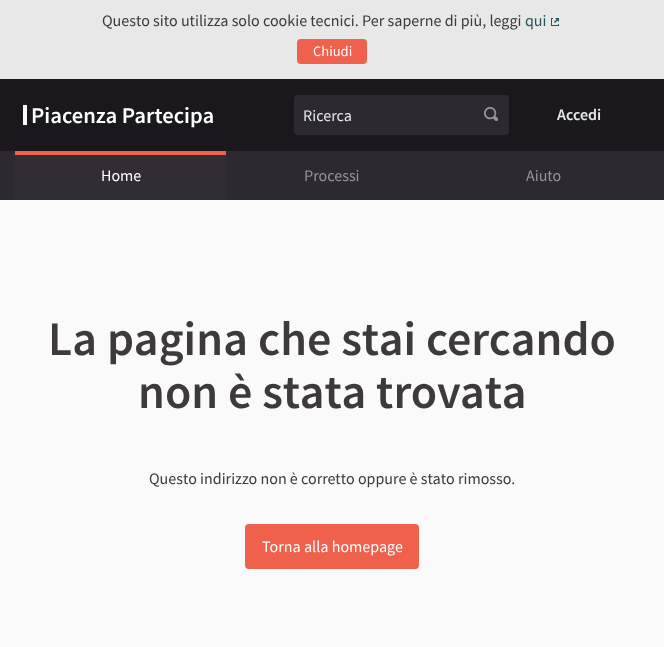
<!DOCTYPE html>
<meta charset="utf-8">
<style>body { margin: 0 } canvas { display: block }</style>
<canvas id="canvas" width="664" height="647"></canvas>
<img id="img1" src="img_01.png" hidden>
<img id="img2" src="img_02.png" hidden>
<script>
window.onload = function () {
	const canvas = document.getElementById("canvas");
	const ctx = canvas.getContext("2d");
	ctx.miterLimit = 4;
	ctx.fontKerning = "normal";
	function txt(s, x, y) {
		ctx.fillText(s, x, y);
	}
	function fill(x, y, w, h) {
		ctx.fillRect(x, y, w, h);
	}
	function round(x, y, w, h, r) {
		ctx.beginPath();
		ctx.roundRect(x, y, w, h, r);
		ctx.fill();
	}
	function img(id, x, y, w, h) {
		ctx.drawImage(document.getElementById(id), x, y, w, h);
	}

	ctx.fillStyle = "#FAFAFA";
	fill(0, 0, 664, 647);
	ctx.fillStyle = "#E8E8E8";
	fill(0, 0, 664, 79);
	img("img1", 551, 18, 8, 8);
	ctx.fillStyle = "#EF604D";
	round(297, 39, 70, 25, 4);
	ctx.fillStyle = "#1A181D";
	fill(0, 79, 664, 72);
	ctx.fillStyle = "#FFFFFF";
	fill(23, 105, 4, 20);
	ctx.fillStyle = "#2C2930";
	ctx.beginPath();
	ctx.roundRect(294, 95, 179, 40, [4, 0, 0, 4]);
	ctx.fill();
	ctx.beginPath();
	ctx.roundRect(473, 95, 36, 40, [0, 4, 4, 0]);
	ctx.fill();
	img("img2", 484, 107, 14, 14);
	fill(0, 151, 664, 49);
	ctx.fillStyle = "#302D34";
	fill(15, 155, 211, 45);
	ctx.fillStyle = "#EF604D";
	fill(15, 151, 211, 4);
	round(245, 524, 174, 45, 4);
	ctx.font = "16px Source Sans Pro";
	ctx.fillStyle = "#3D393C";
	txt("Questo sito utilizza solo cookie tecnici. Per saperne di più, leggi", 102, 26);
	ctx.fillStyle = "#29545C";
	txt("qui", 525, 26);
	ctx.font = "14.5px Source Sans Pro";
	ctx.fillStyle = "#FFFFFF";
	txt("Chiudi", 313, 56);
	ctx.font = "600 22.5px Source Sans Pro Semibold";
	txt("Piacenza Partecipa", 31, 123);
	ctx.font = "16px Source Sans Pro";
	ctx.fillStyle = "#E8E8E8";
	txt("Ricerca", 303, 121);
	ctx.font = "600 16px Source Sans Pro Semibold";
	txt("Accedi", 557, 120);
	ctx.font = "16px Source Sans Pro";
	ctx.fillStyle = "#FFFFFF";
	txt("Home", 101, 181);
	ctx.fillStyle = "#969498";
	txt("Processi", 304, 181);
	txt("Aiuto", 526, 181);
	ctx.font = "600 48px Source Sans Pro Semibold";
	ctx.fillStyle = "#3D393C";
	txt("La pagina che stai cercando", 48, 355);
	txt("non è stata trovata", 138, 408);
	ctx.font = "16px Source Sans Pro";
	txt("Questo indirizzo non è corretto oppure è stato rimosso.", 149, 484);
	ctx.fillStyle = "#FFFFFF";
	txt("Torna alla homepage", 262, 552);
};
</script>
